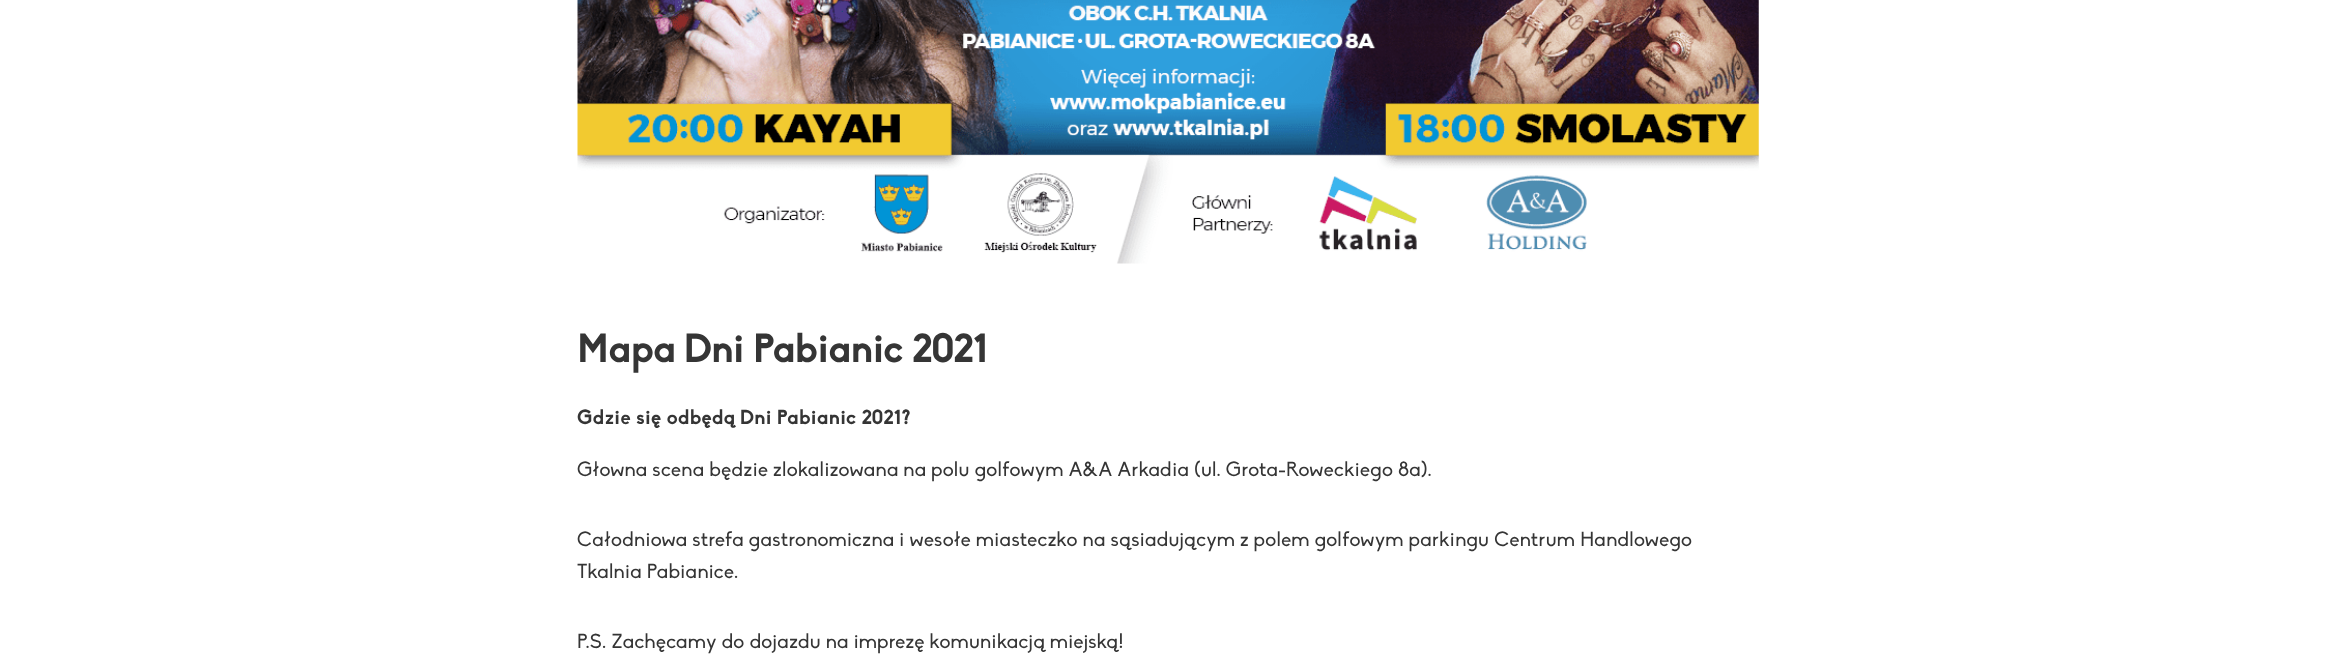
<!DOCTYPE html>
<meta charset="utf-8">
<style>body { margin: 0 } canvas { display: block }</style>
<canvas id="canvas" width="2335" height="656"></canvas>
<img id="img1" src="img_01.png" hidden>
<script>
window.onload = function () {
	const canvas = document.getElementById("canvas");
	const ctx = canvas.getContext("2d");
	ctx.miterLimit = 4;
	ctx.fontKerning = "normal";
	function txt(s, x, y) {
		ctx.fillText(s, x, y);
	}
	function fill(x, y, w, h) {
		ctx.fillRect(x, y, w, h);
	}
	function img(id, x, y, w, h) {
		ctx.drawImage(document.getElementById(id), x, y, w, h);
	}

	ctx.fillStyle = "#FFFFFF";
	fill(0, 0, 2335, 656);
	img("img1", 577, 0, 1182, 264);
	ctx.letterSpacing = "-0.4px";
	ctx.font = "bold 40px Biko";
	ctx.fillStyle = "#353535";
	txt("Mapa Dni Pabianic 2021", 577, 362);
	ctx.letterSpacing = "0.38px";
	ctx.font = "bold 20px Biko";
	txt("Gdzie się odbędą Dni Pabianic 2021?", 577, 424);
	ctx.font = "20px Biko";
	txt("Głowna scena będzie zlokalizowana na polu golfowym A&A Arkadia (ul. Grota-Roweckiego 8a).", 577, 476);
	txt("Całodniowa strefa gastronomiczna i wesołe miasteczko na sąsiadującym z polem golfowym parkingu Centrum Handlowego", 577, 546);
	txt("Tkalnia Pabianice.", 577, 578);
	txt("P.S. Zachęcamy do dojazdu na imprezę komunikacją miejską!", 577, 648);
};
</script>
